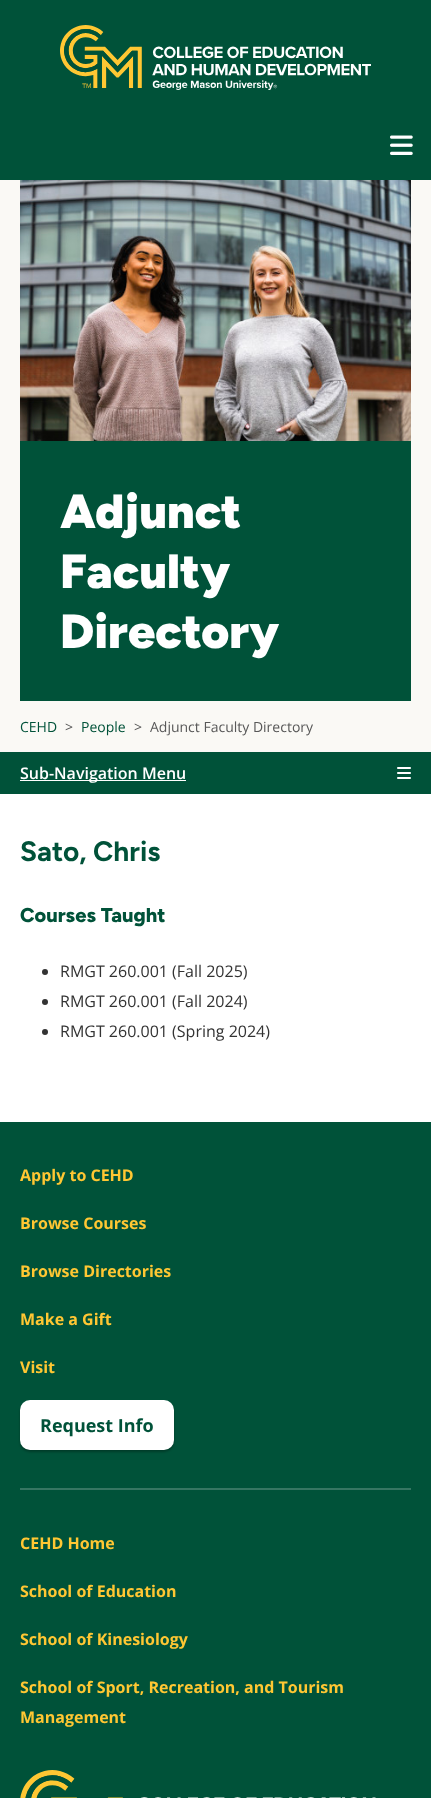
<!DOCTYPE html>
<meta charset="utf-8">
<style>body { margin: 0 } canvas { display: block }</style>
<canvas id="canvas" width="431" height="1798"></canvas>
<img id="img1" src="img_01.png" hidden>
<img id="img2" src="img_02.png" hidden>
<img id="img3" src="img_03.png" hidden>
<img id="img4" src="img_04.png" hidden>
<img id="img5" src="img_05.png" hidden>
<script>
window.onload = function () {
	const canvas = document.getElementById("canvas");
	const ctx = canvas.getContext("2d");
	ctx.miterLimit = 4;
	ctx.fontKerning = "normal";
	function txt(s, x, y) {
		ctx.fillText(s, x, y);
	}
	function fill(x, y, w, h) {
		ctx.fillRect(x, y, w, h);
	}
	function round(x, y, w, h, r) {
		ctx.beginPath();
		ctx.roundRect(x, y, w, h, r);
		ctx.fill();
	}
	function img(id, x, y, w, h) {
		ctx.drawImage(document.getElementById(id), x, y, w, h);
	}

	ctx.fillStyle = "#FFFFFF";
	fill(0, 0, 431, 1798);
	ctx.fillStyle = "#005239";
	fill(0, 0, 431, 180);
	img("img1", 60, 25, 311, 65);
	img("img2", 390, 135, 23, 20);
	ctx.fillStyle = "#FAF9F5";
	fill(0, 180, 431, 572);
	img("img3", 20, 180, 391, 261);
	ctx.fillStyle = "#005239";
	fill(20, 441, 391, 260);
	fill(0, 752, 431, 42);
	ctx.fillStyle = "#FFFFFF";
	fill(20, 780, 166, 1);
	img("img4", 397, 767, 14, 12);
	ctx.fillStyle = "#333333";
	ctx.beginPath();
	ctx.arc(45, 972, 3, 0, Math.PI * 2);
	ctx.fill();
	ctx.beginPath();
	ctx.arc(45, 1002, 3, 0, Math.PI * 2);
	ctx.fill();
	ctx.beginPath();
	ctx.arc(45, 1032, 3, 0, Math.PI * 2);
	ctx.fill();
	ctx.fillStyle = "#005239";
	fill(0, 1122, 431, 676);
	ctx.fillStyle = "rgba(0, 0, 0, 0.27)";
	ctx.filter = "blur(1px)";
	ctx.beginPath();
	ctx.roundRect(20, 1402, 154, 50, 10);
	ctx.fill();
	ctx.filter = "none";
	ctx.fillStyle = "#FFFFFF";
	round(20, 1400, 154, 50, 10);
	ctx.fillStyle = "#367662";
	fill(20, 1488, 391, 2);
	img("img5", 20, 1770, 356, 28);
	ctx.font = "900 48px Figtree";
	ctx.fillStyle = "#FFFFFF";
	txt("Adjunct", 60, 528);
	txt("Faculty", 60, 588);
	txt("Directory", 60, 648);
	ctx.font = "14px Open Sans";
	ctx.fillStyle = "#005239";
	txt("CEHD", 20, 732);
	ctx.fillStyle = "#585858";
	txt(">", 65, 732);
	ctx.fillStyle = "#005239";
	txt("People", 81, 732);
	ctx.fillStyle = "#585858";
	txt(">", 134, 732);
	txt("Adjunct Faculty Directory", 150, 732);
	ctx.font = "600 16px Open Sans";
	ctx.fillStyle = "#FFFFFF";
	txt("Sub-Navigation Menu", 20, 779);
	ctx.font = "bold 28px Figtree";
	ctx.fillStyle = "#005239";
	txt("Sato, Chris", 20, 861);
	ctx.font = "800 20px Figtree";
	txt("Courses Taught", 20, 922);
	ctx.font = "16px Open Sans";
	ctx.fillStyle = "#333333";
	txt("RMGT 260.001 (Fall 2025)", 60, 977);
	txt("RMGT 260.001 (Fall 2024)", 60, 1007);
	txt("RMGT 260.001 (Spring 2024)", 60, 1037);
	ctx.font = "bold 16px Open Sans";
	ctx.fillStyle = "#FFC733";
	txt("Apply to CEHD", 20, 1181);
	txt("Browse Courses", 20, 1229);
	txt("Browse Directories", 20, 1277);
	txt("Make a Gift", 20, 1325);
	txt("Visit", 20, 1373);
	ctx.font = "bold 18px Open Sans";
	ctx.fillStyle = "#005239";
	txt("Request Info", 40, 1432);
	ctx.font = "bold 16px Open Sans";
	ctx.fillStyle = "#FFC733";
	txt("CEHD Home", 20, 1549);
	txt("School of Education", 20, 1597);
	txt("School of Kinesiology", 20, 1645);
	txt("School of Sport, Recreation, and Tourism", 20, 1693);
	txt("Management", 20, 1723);
};
</script>
